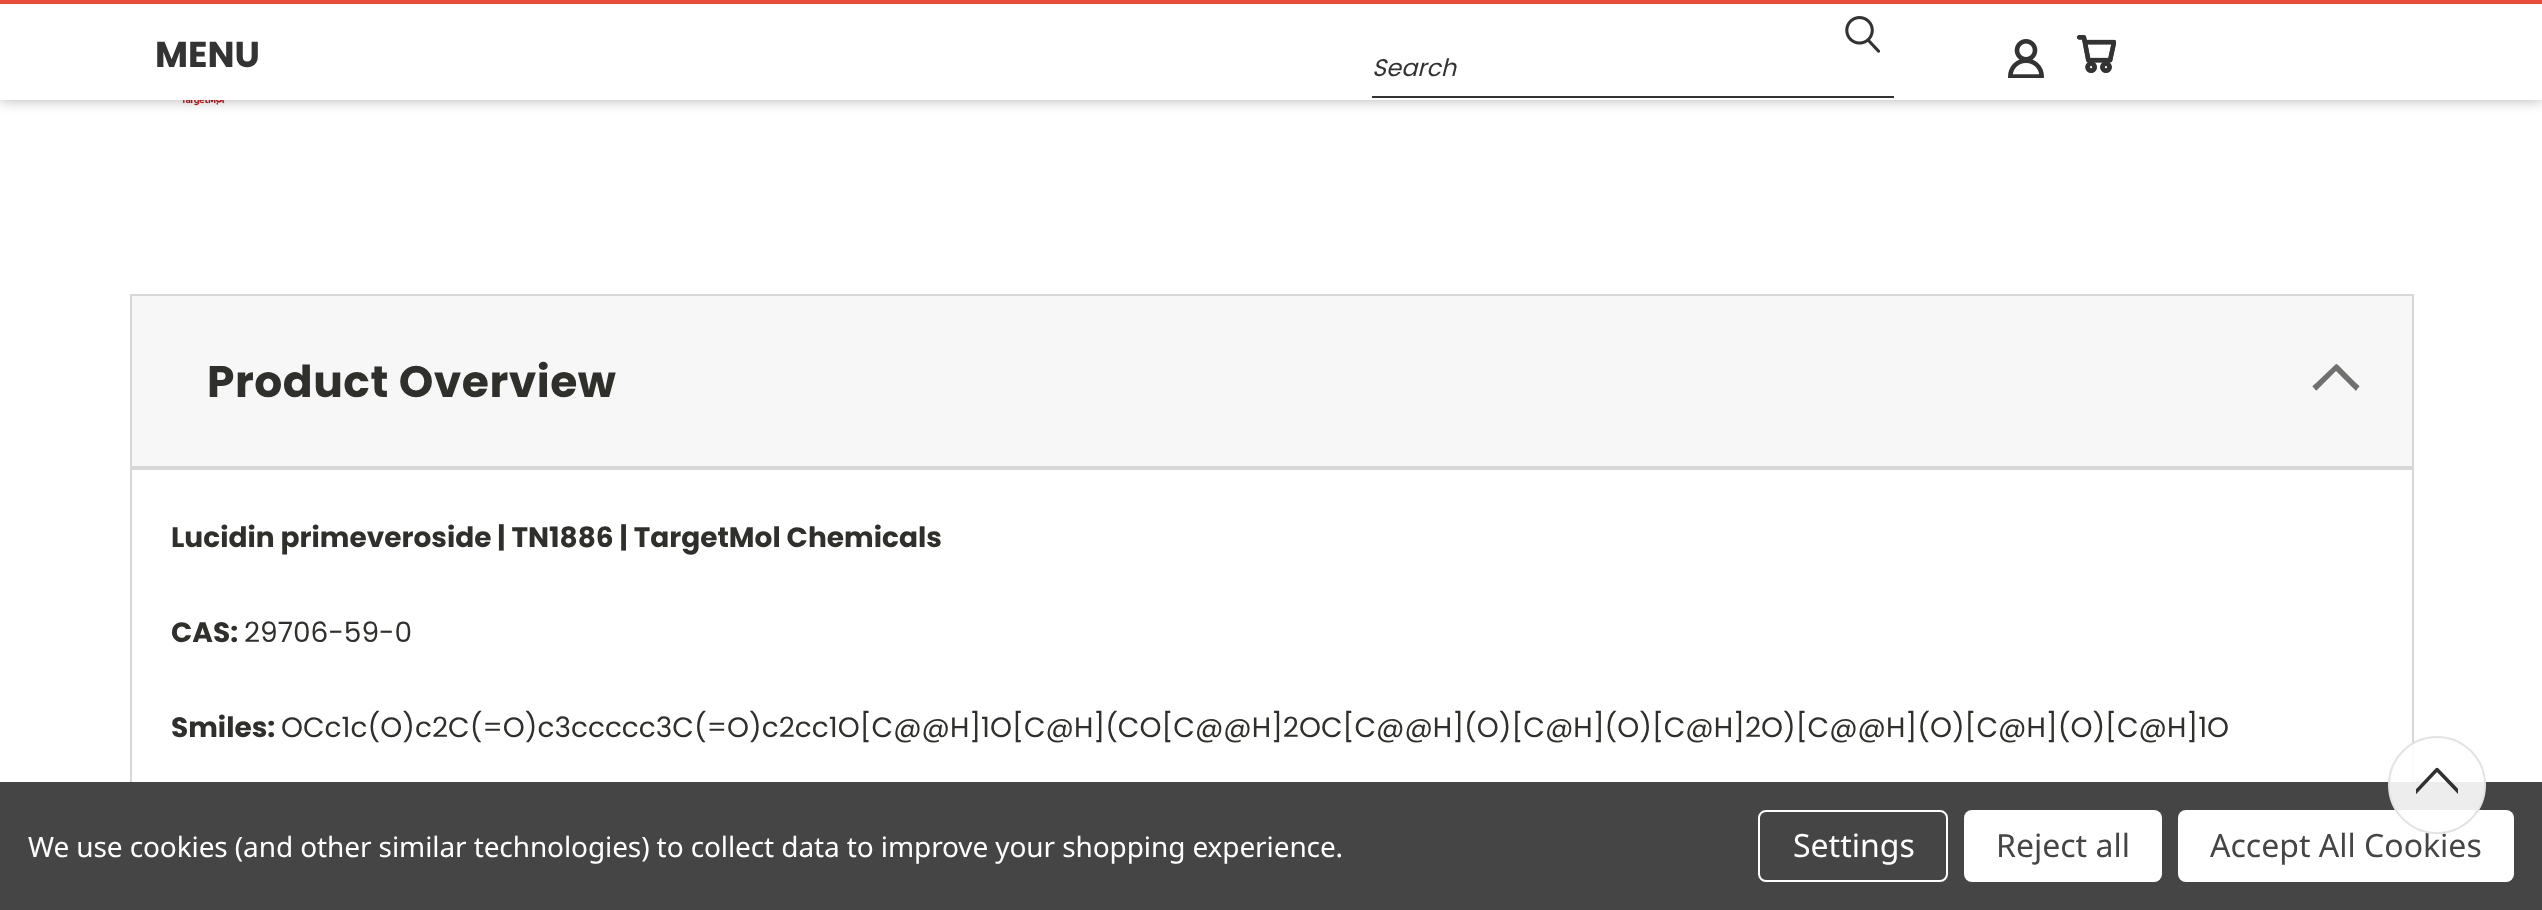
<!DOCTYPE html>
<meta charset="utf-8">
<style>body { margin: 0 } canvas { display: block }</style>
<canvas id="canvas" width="2542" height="910"></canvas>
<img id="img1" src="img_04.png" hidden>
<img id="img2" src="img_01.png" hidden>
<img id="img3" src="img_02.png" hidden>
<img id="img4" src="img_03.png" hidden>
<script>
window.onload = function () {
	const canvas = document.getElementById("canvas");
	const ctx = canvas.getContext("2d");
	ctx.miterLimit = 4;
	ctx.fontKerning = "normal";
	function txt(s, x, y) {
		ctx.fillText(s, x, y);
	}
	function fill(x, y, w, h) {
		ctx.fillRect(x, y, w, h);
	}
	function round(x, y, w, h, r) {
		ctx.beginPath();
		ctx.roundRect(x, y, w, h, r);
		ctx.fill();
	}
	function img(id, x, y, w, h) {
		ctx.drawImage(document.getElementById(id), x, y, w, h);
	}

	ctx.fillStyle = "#FFFFFF";
	fill(0, 0, 2542, 910);
	img("img1", 180, 100, 45, 6);
	ctx.fillStyle = "rgba(0, 0, 0, 0.3)";
	ctx.filter = "blur(7px)";
	ctx.beginPath();
	ctx.rect(0, 0, 2542, 100);
	ctx.fill();
	ctx.filter = "none";
	ctx.fillStyle = "#FFFFFF";
	fill(0, 4, 2542, 96);
	ctx.fillStyle = "#E74C3C";
	fill(0, 0, 2542, 4);
	img("img2", 1845, 16, 36, 37);
	ctx.fillStyle = "#333333";
	fill(1372, 96, 522, 2);
	img("img3", 2008, 39, 36, 39);
	img("img4", 2077, 35, 39, 38);
	ctx.fillStyle = "#F7F7F7";
	ctx.beginPath();
	ctx.rect(131, 295, 2282, 172);
	ctx.fill();
	ctx.strokeStyle = "#D7D7D7";
	ctx.lineWidth = 2;
	ctx.stroke();
	ctx.fillStyle = "#70706E";
	ctx.beginPath();
	ctx.moveTo(2336, 364);
	ctx.bezierCurveTo(2337, 363, 2343, 370, 2344, 371);
	ctx.lineTo(2356, 383);
	ctx.bezierCurveTo(2359, 386, 2361, 386, 2358, 388);
	ctx.lineTo(2356, 391);
	ctx.lineTo(2336, 371);
	ctx.lineTo(2320, 387);
	ctx.bezierCurveTo(2316, 391, 2317, 392, 2314, 388);
	ctx.bezierCurveTo(2311, 386, 2313, 386, 2316, 383);
	ctx.closePath();
	ctx.fill();
	ctx.strokeRect(131, 469, 2282, 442);
	ctx.fillStyle = "#454545";
	fill(0, 782, 2542, 128);
	ctx.beginPath();
	ctx.roundRect(1759, 811, 188, 70, 7);
	ctx.strokeStyle = "#FFFFFF";
	ctx.stroke();
	ctx.fillStyle = "#FFFFFF";
	round(1964, 810, 198, 72, 8);
	round(2178, 810, 336, 72, 8);
	ctx.font = "bold 36px Poppins";
	ctx.fillStyle = "#333333";
	txt("MENU", 155, 67);
	ctx.font = "italic 24px Poppins";
	txt("Search", 1372, 76);
	ctx.letterSpacing = "0.5px";
	ctx.font = "bold 44px Poppins";
	ctx.fillStyle = "#2F2F2B";
	txt("Product Overview", 207, 397);
	ctx.letterSpacing = "0px";
	ctx.font = "bold 28px Poppins";
	txt("Lucidin primeveroside | TN1886 | TargetMol Chemicals", 171, 547);
	txt("CAS:", 171, 642);
	ctx.font = "28px Poppins";
	txt("29706-59-0", 244, 642);
	ctx.font = "bold 28px Poppins";
	txt("Smiles:", 171, 737);
	ctx.font = "28px Poppins";
	txt("OCc1c(O)c2C(=O)c3ccccc3C(=O)c2cc1O[C@@H]1O[C@H](CO[C@@H]2OC[C@@H](O)[C@H](O)[C@H]2O)[C@@H](O)[C@H](O)[C@H]1O", 281, 737);
	ctx.letterSpacing = "-0.1px";
	ctx.font = "28px Noto Sans";
	ctx.fillStyle = "#FFFFFF";
	txt("We use cookies (and other similar technologies) to collect data to improve your shopping experience.", 28, 857);
	ctx.letterSpacing = "0px";
	ctx.font = "32px Noto Sans";
	txt("Settings", 1793, 857);
	ctx.fillStyle = "#454545";
	txt("Reject all", 1996, 857);
	txt("Accept All Cookies", 2210, 857);
	ctx.fillStyle = "rgba(255, 255, 255, 0.9)";
	ctx.beginPath();
	ctx.arc(2437, 785, 48, 0, Math.PI * 2);
	ctx.fill();
	ctx.strokeStyle = "#E4E3E1";
	ctx.stroke();
	ctx.save();
	ctx.beginPath();
	ctx.moveTo(2458, 767);
	ctx.lineTo(2458, 809);
	ctx.lineTo(2416, 809);
	ctx.lineTo(2416, 767);
	ctx.closePath();
	ctx.clip();
	ctx.beginPath();
	ctx.moveTo(2472.5, 806.5);
	ctx.lineTo(2437, 769.5);
	ctx.lineTo(2402.5, 806);
	ctx.strokeStyle = "#313131";
	ctx.lineWidth = 3.5;
	ctx.lineCap = "round";
	ctx.lineJoin = "round";
	ctx.stroke();
	ctx.restore();
};
</script>
